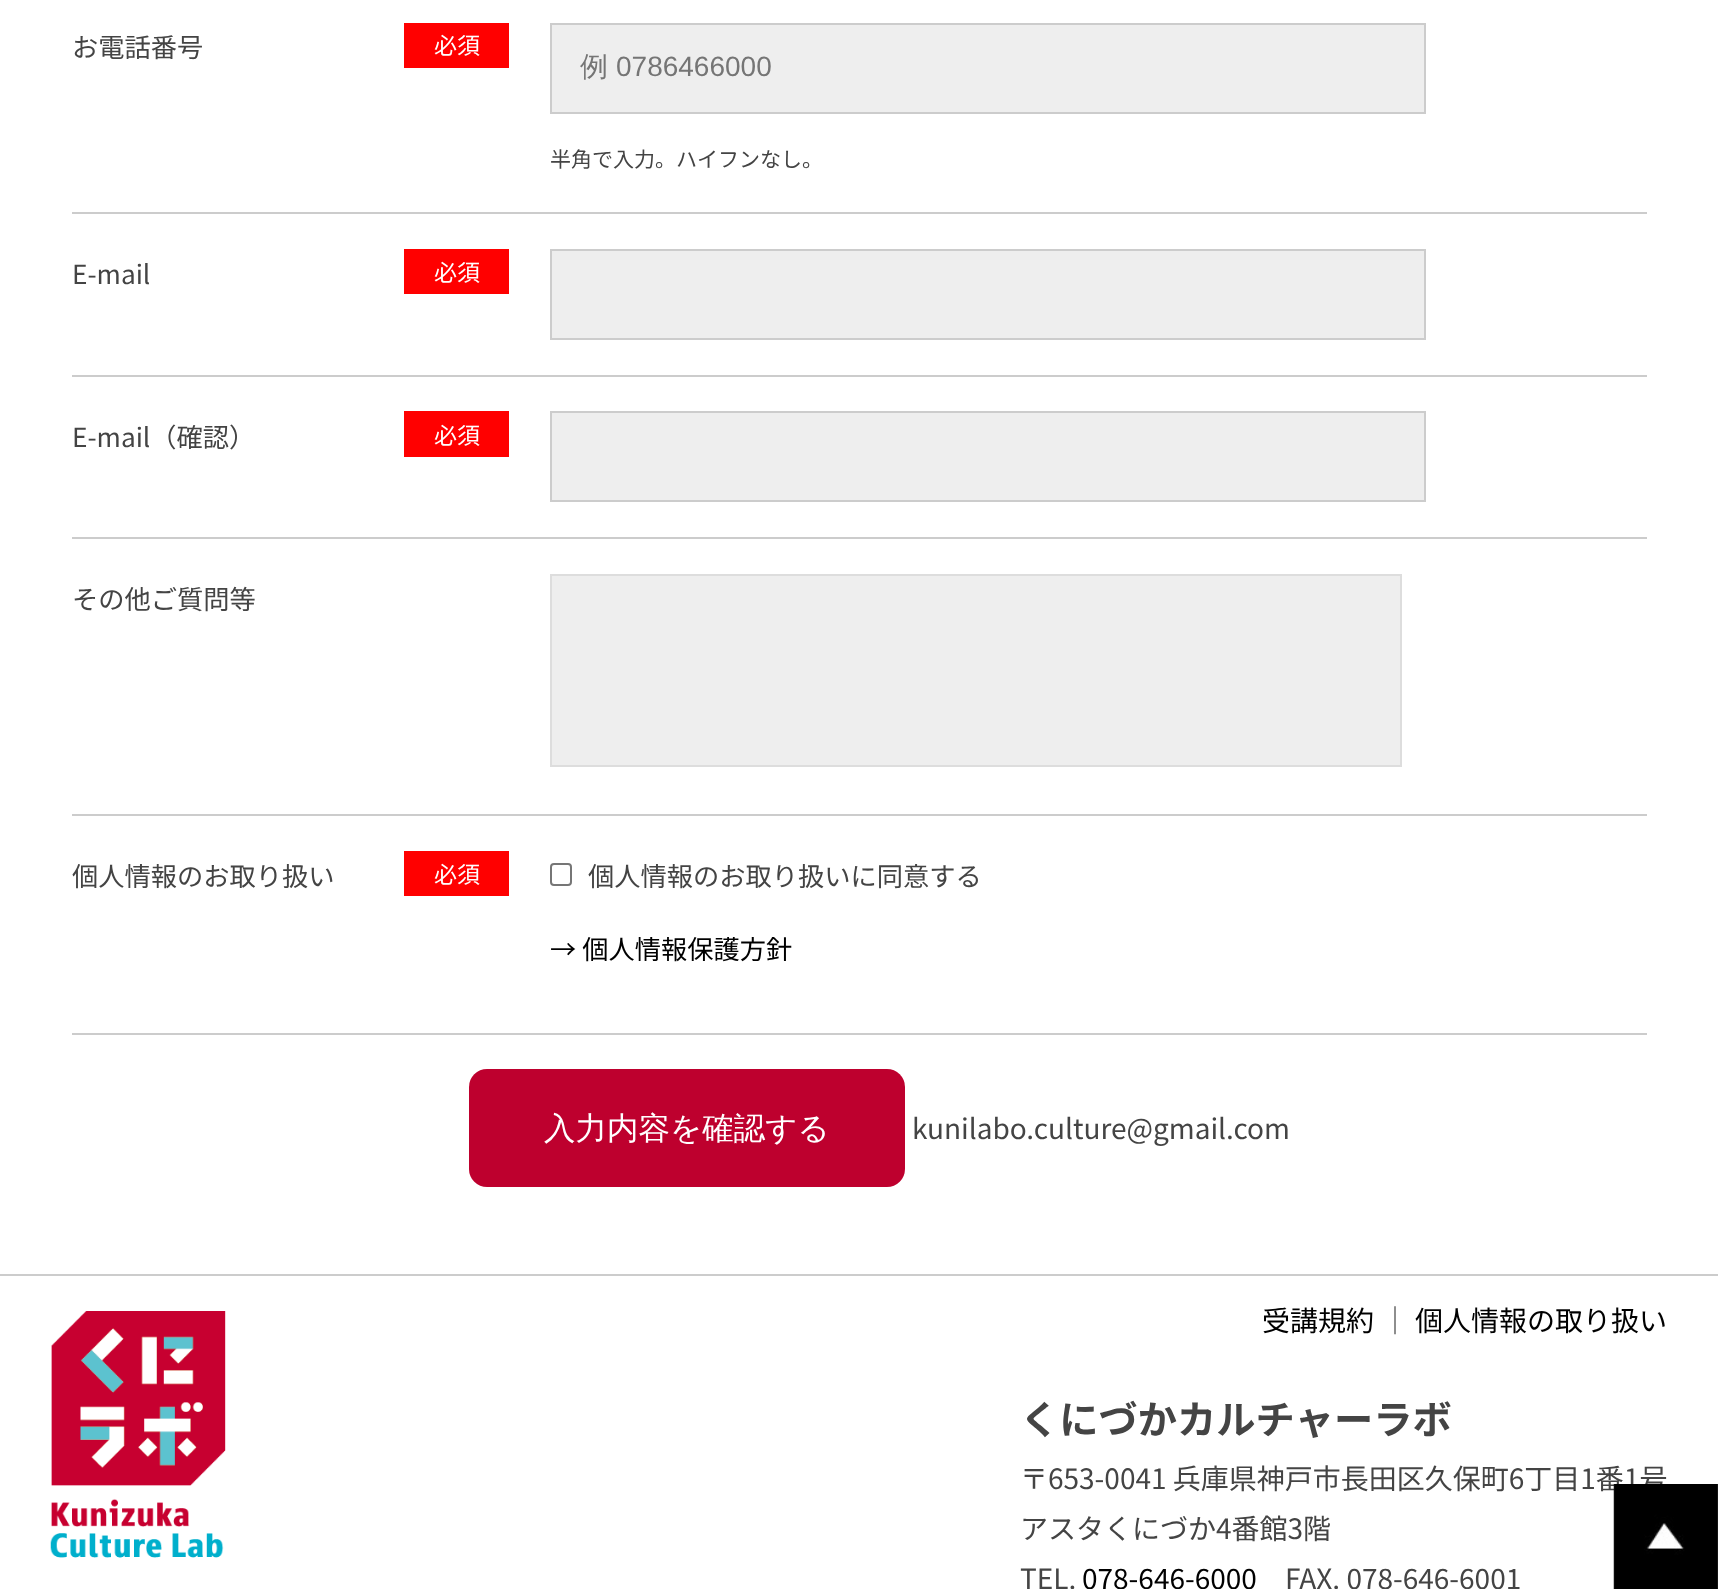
<!DOCTYPE html>
<meta charset="utf-8">
<style>body { margin: 0 } canvas { display: block }</style>
<canvas id="canvas" width="1718" height="1589"></canvas>
<img id="img1" src="img_01.png" hidden>
<img id="img2" src="img_02.png" hidden>
<script>
window.onload = function () {
	const canvas = document.getElementById("canvas");
	const ctx = canvas.getContext("2d");
	ctx.miterLimit = 4;
	ctx.fontKerning = "normal";
	function txt(s, x, y) {
		ctx.fillText(s, x, y);
	}
	function fill(x, y, w, h) {
		ctx.fillRect(x, y, w, h);
	}
	function round(x, y, w, h, r) {
		ctx.beginPath();
		ctx.roundRect(x, y, w, h, r);
		ctx.fill();
	}
	function img(id, x, y, w, h) {
		ctx.drawImage(document.getElementById(id), x, y, w, h);
	}

	ctx.fillStyle = "#FFFFFF";
	fill(0, 0, 1718, 1589);
	ctx.fillStyle = "#CCCCCC";
	fill(72, 212, 1575, 2);
	ctx.fillStyle = "#FF0000";
	fill(404, 23, 105, 45);
	ctx.fillStyle = "#EEEEEE";
	ctx.beginPath();
	ctx.rect(551, 24, 874, 89);
	ctx.fill();
	ctx.strokeStyle = "#CCCCCC";
	ctx.lineWidth = 2;
	ctx.stroke();
	ctx.fillStyle = "#CCCCCC";
	fill(72, 375, 1575, 2);
	ctx.fillStyle = "#FF0000";
	fill(404, 249, 105, 45);
	ctx.fillStyle = "#EEEEEE";
	ctx.beginPath();
	ctx.rect(551, 250, 874, 89);
	ctx.fill();
	ctx.stroke();
	ctx.fillStyle = "#CCCCCC";
	fill(72, 537, 1575, 2);
	ctx.fillStyle = "#FF0000";
	fill(404, 411, 105, 46);
	ctx.fillStyle = "#EEEEEE";
	ctx.beginPath();
	ctx.rect(551, 412, 874, 89);
	ctx.fill();
	ctx.stroke();
	ctx.fillStyle = "#CCCCCC";
	fill(72, 814, 1575, 2);
	ctx.fillStyle = "#EEEEEE";
	ctx.beginPath();
	ctx.rect(551, 575, 850, 191);
	ctx.fill();
	ctx.strokeStyle = "#DDDDDD";
	ctx.stroke();
	ctx.fillStyle = "#CCCCCC";
	fill(72, 1033, 1575, 2);
	ctx.fillStyle = "#FF0000";
	fill(404, 851, 105, 45);
	ctx.beginPath();
	ctx.roundRect(551, 864, 20, 21, 3);
	ctx.strokeStyle = "#767676";
	ctx.stroke();
	ctx.fillStyle = "#BE002E";
	round(469, 1069, 436, 118, 18);
	ctx.fillStyle = "#CCCCCC";
	fill(0, 1274, 1718, 2);
	img("img1", 50, 1311, 176, 247);
	ctx.font = "26.25px Noto Sans JP";
	ctx.fillStyle = "#444444";
	txt("お電話番号", 72, 57);
	ctx.font = "23px Noto Sans JP";
	ctx.fillStyle = "#FFFFFF";
	txt("必須", 434, 54);
	ctx.font = "500 28px WenQuanYi Zen Hei";
	ctx.fillStyle = "#757575";
	txt("例", 580, 76);
	ctx.font = "28px Liberation Sans";
	txt("0786466000", 616, 76);
	ctx.font = "21px Noto Sans JP";
	ctx.fillStyle = "#444444";
	txt("半角で入力。ハイフンなし。", 550, 167);
	ctx.font = "26.25px Noto Sans JP";
	txt("E-mail", 72, 284);
	ctx.font = "23px Noto Sans JP";
	ctx.fillStyle = "#FFFFFF";
	txt("必須", 434, 281);
	ctx.font = "26.25px Noto Sans JP";
	ctx.fillStyle = "#444444";
	txt("E-mail（確認）", 72, 447);
	ctx.font = "23px Noto Sans JP";
	ctx.fillStyle = "#FFFFFF";
	txt("必須", 434, 444);
	ctx.font = "26.25px Noto Sans JP";
	ctx.fillStyle = "#444444";
	txt("その他ご質問等", 72, 609);
	txt("個人情報のお取り扱い", 72, 886);
	ctx.font = "23px Noto Sans JP";
	ctx.fillStyle = "#FFFFFF";
	txt("必須", 434, 883);
	ctx.font = "26.25px Noto Sans JP";
	ctx.fillStyle = "#444444";
	txt("個⼈情報のお取り扱いに同意する", 588, 886);
	ctx.fillStyle = "#000000";
	txt("→ 個⼈情報保護方針", 550, 959);
	ctx.font = "500 31.5px WenQuanYi Zen Hei";
	ctx.fillStyle = "#FFFFFF";
	txt("入力内容を確認する", 544, 1139);
	ctx.font = "28px Noto Sans JP";
	ctx.fillStyle = "#444444";
	txt("kunilabo.culture@gmail.com", 912, 1139);
	ctx.fillStyle = "#000000";
	txt("受講規約", 1262, 1331);
	ctx.fillStyle = "#444444";
	txt("｜", 1381, 1331);
	ctx.fillStyle = "#000000";
	txt("個人情報の取り扱い", 1415, 1331);
	ctx.font = "bold 39.25px Noto Sans JP";
	ctx.fillStyle = "#444444";
	txt("くにづかカルチャーラボ", 1020, 1434);
	ctx.font = "28px Noto Sans JP";
	txt("〒653-0041 兵庫県神戸市長田区久保町6丁目1番1号", 1020, 1489);
	txt("アスタくにづか4番館3階", 1020, 1539);
	txt("TEL.", 1020, 1589);
	ctx.fillStyle = "#000000";
	txt("078-646-6000", 1082, 1589);
	ctx.fillStyle = "#444444";
	txt("FAX. 078-646-6001", 1285, 1589);
	img("img2", 1613, 1484, 105, 105);
};
</script>
